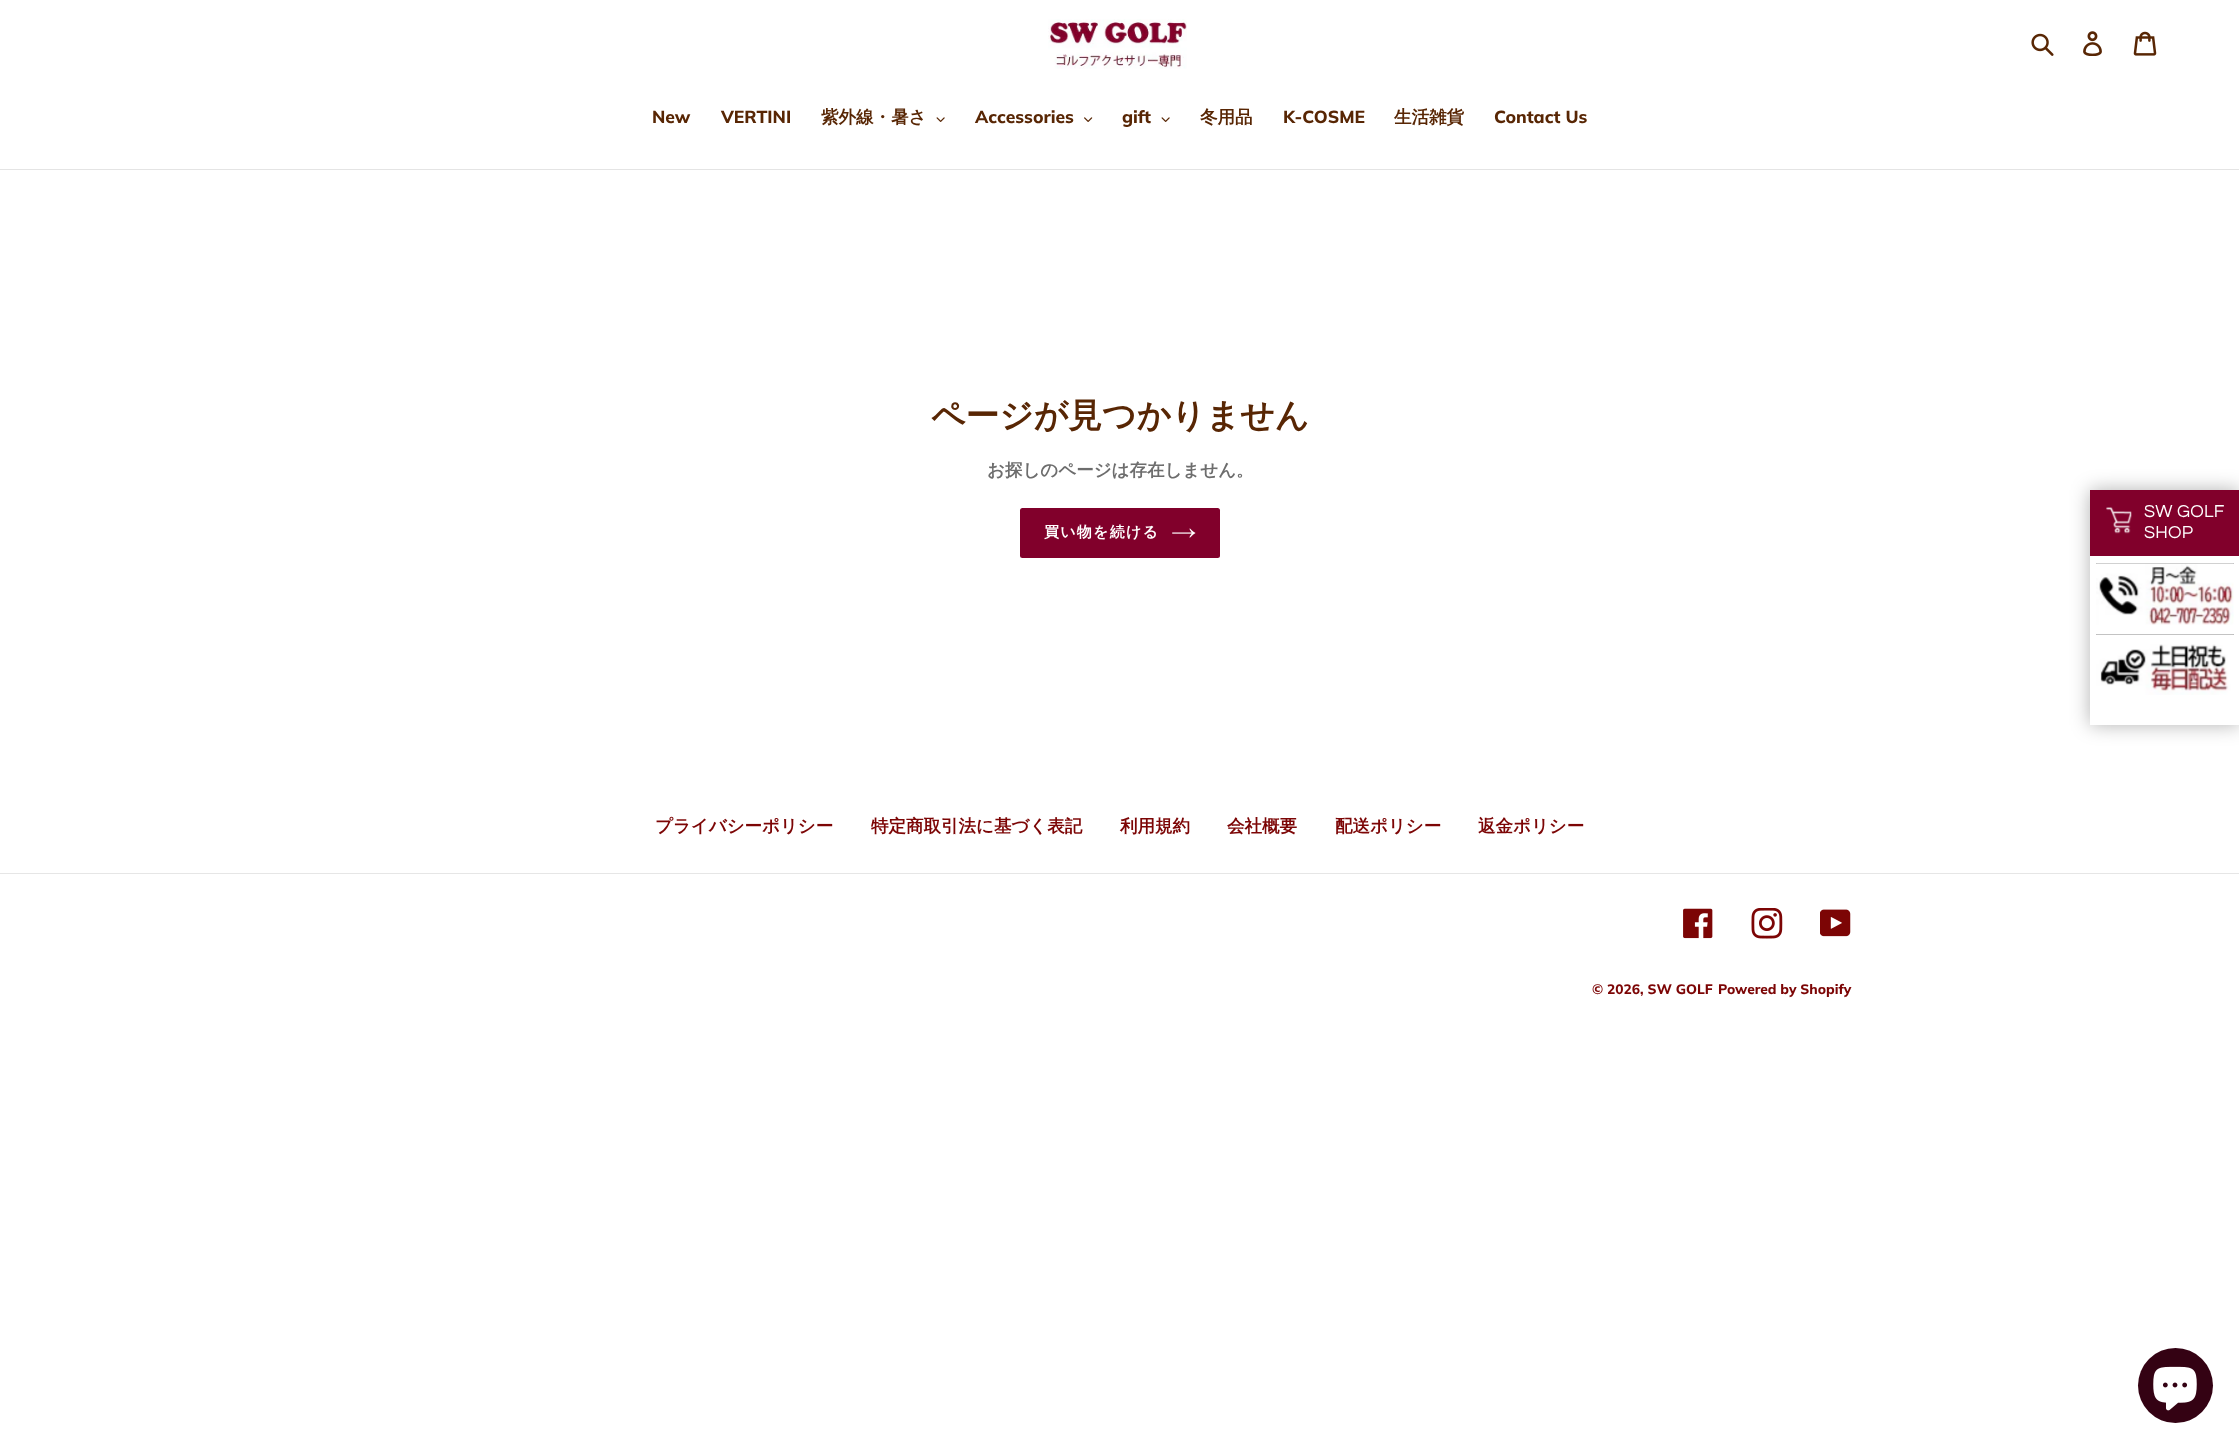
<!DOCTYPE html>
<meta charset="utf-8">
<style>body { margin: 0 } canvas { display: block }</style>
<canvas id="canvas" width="2239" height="1448"></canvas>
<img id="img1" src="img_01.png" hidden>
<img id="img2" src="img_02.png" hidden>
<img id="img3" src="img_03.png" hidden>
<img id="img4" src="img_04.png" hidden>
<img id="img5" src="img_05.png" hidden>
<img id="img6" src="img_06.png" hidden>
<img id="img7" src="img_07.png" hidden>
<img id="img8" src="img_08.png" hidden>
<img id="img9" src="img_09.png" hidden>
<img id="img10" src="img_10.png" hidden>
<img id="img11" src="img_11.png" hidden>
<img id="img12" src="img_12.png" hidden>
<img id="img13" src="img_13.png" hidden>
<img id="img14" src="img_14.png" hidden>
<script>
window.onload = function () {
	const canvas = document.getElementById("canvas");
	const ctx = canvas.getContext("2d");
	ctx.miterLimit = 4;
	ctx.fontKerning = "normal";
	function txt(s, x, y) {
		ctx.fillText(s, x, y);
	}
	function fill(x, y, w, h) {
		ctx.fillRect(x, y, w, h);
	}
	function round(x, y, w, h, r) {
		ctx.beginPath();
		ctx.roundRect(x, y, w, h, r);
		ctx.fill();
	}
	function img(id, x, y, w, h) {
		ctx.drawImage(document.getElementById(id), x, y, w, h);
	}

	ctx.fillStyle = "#FFFFFF";
	fill(0, 0, 2239, 1448);
	img("img1", 1048, 19, 139, 50);
	img("img2", 2031, 33, 23, 23);
	img("img3", 2083, 31, 19, 25);
	img("img4", 2133, 31, 24, 25);
	ctx.fillStyle = "#E4E4E4";
	fill(0, 169, 2239, 1);
	img("img5", 936, 117, 9, 5);
	img("img6", 1084, 117, 9, 5);
	img("img5", 1161, 117, 9, 5);
	ctx.save();
	ctx.beginPath();
	ctx.moveTo(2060, 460);
	ctx.lineTo(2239, 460);
	ctx.lineTo(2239, 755);
	ctx.lineTo(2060, 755);
	ctx.closePath();
	ctx.moveTo(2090, 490);
	ctx.lineTo(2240, 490);
	ctx.lineTo(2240, 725);
	ctx.lineTo(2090, 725);
	ctx.closePath();
	ctx.clip("evenodd");
	ctx.fillStyle = "rgba(0, 0, 0, 0.3)";
	ctx.filter = "blur(9.5px)";
	ctx.beginPath();
	ctx.rect(2090, 490, 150, 235);
	ctx.fill();
	ctx.filter = "none";
	ctx.restore();
	ctx.fillStyle = "#81002B";
	fill(2090, 490, 149, 66);
	img("img7", 2106, 507, 26, 27);
	ctx.fillStyle = "#B5B5B6";
	fill(2096, 563, 138, 1);
	img("img8", 2096, 563, 138, 62);
	fill(2096, 634, 138, 1);
	img("img9", 2096, 634, 138, 61);
	ctx.fillStyle = "#81002B";
	round(1020, 508, 200, 50, 2.5);
	img("img10", 1172, 528, 24, 10);
	ctx.fillStyle = "#E6E6E6";
	fill(0, 873, 2239, 1);
	img("img11", 1683, 908, 30, 31);
	img("img12", 1751, 908, 32, 31);
	img("img13", 1820, 909, 31, 28);
	ctx.fillStyle = "#340213";
	ctx.beginPath();
	ctx.arc(2175.5, 1385.5, 37.5, 0, Math.PI * 2);
	ctx.fill();
	img("img14", 2153, 1366, 44, 45);
	ctx.font = "800 17.5px Muli";
	ctx.fillStyle = "#582604";
	txt("New", 652, 123);
	txt("VERTINI", 721, 123);
	ctx.font = "bold 17.5px WenQuanYi Zen Hei";
	txt("紫外線・暑さ", 821, 123);
	ctx.font = "800 17.5px Muli";
	txt("Accessories", 975, 123);
	txt("gift", 1122, 123);
	ctx.font = "bold 17.5px WenQuanYi Zen Hei";
	txt("冬用品", 1200, 123);
	ctx.font = "800 17.5px Muli";
	txt("K-COSME", 1283, 123);
	ctx.font = "bold 17.5px WenQuanYi Zen Hei";
	txt("生活雑貨", 1394, 123);
	ctx.font = "800 17.5px Muli";
	txt("Contact Us", 1494, 123);
	ctx.letterSpacing = "0.25px";
	ctx.font = "18px Questrial";
	ctx.fillStyle = "#FFFFFF";
	txt("SW GOLF", 2144, 517);
	txt("SHOP", 2144, 538);
	ctx.letterSpacing = "0px";
	ctx.font = "bold 33.75px WenQuanYi Zen Hei";
	ctx.fillStyle = "#582604";
	txt("ページが見つかりません", 931, 427);
	ctx.font = "bold 17.5px WenQuanYi Zen Hei";
	ctx.fillStyle = "#6D6D6D";
	txt("お探しのページは存在しません。", 987, 476);
	ctx.letterSpacing = "1.25px";
	ctx.font = "bold 15px WenQuanYi Zen Hei";
	ctx.fillStyle = "#FFFFFF";
	txt("買い物を続ける", 1044, 537);
	ctx.letterSpacing = "0px";
	ctx.font = "bold 17.5px WenQuanYi Zen Hei";
	ctx.fillStyle = "#7C0505";
	txt("プライバシーポリシー", 655, 832);
	txt("特定商取引法に基づく表記", 871, 832);
	txt("利用規約", 1120, 832);
	txt("会社概要", 1227, 832);
	txt("配送ポリシー", 1335, 832);
	txt("返金ポリシー", 1478, 832);
	ctx.font = "800 13.75px Muli";
	txt("© 2026, SW GOLF", 1592, 994);
	txt("Powered by Shopify", 1718, 994);
};
</script>
